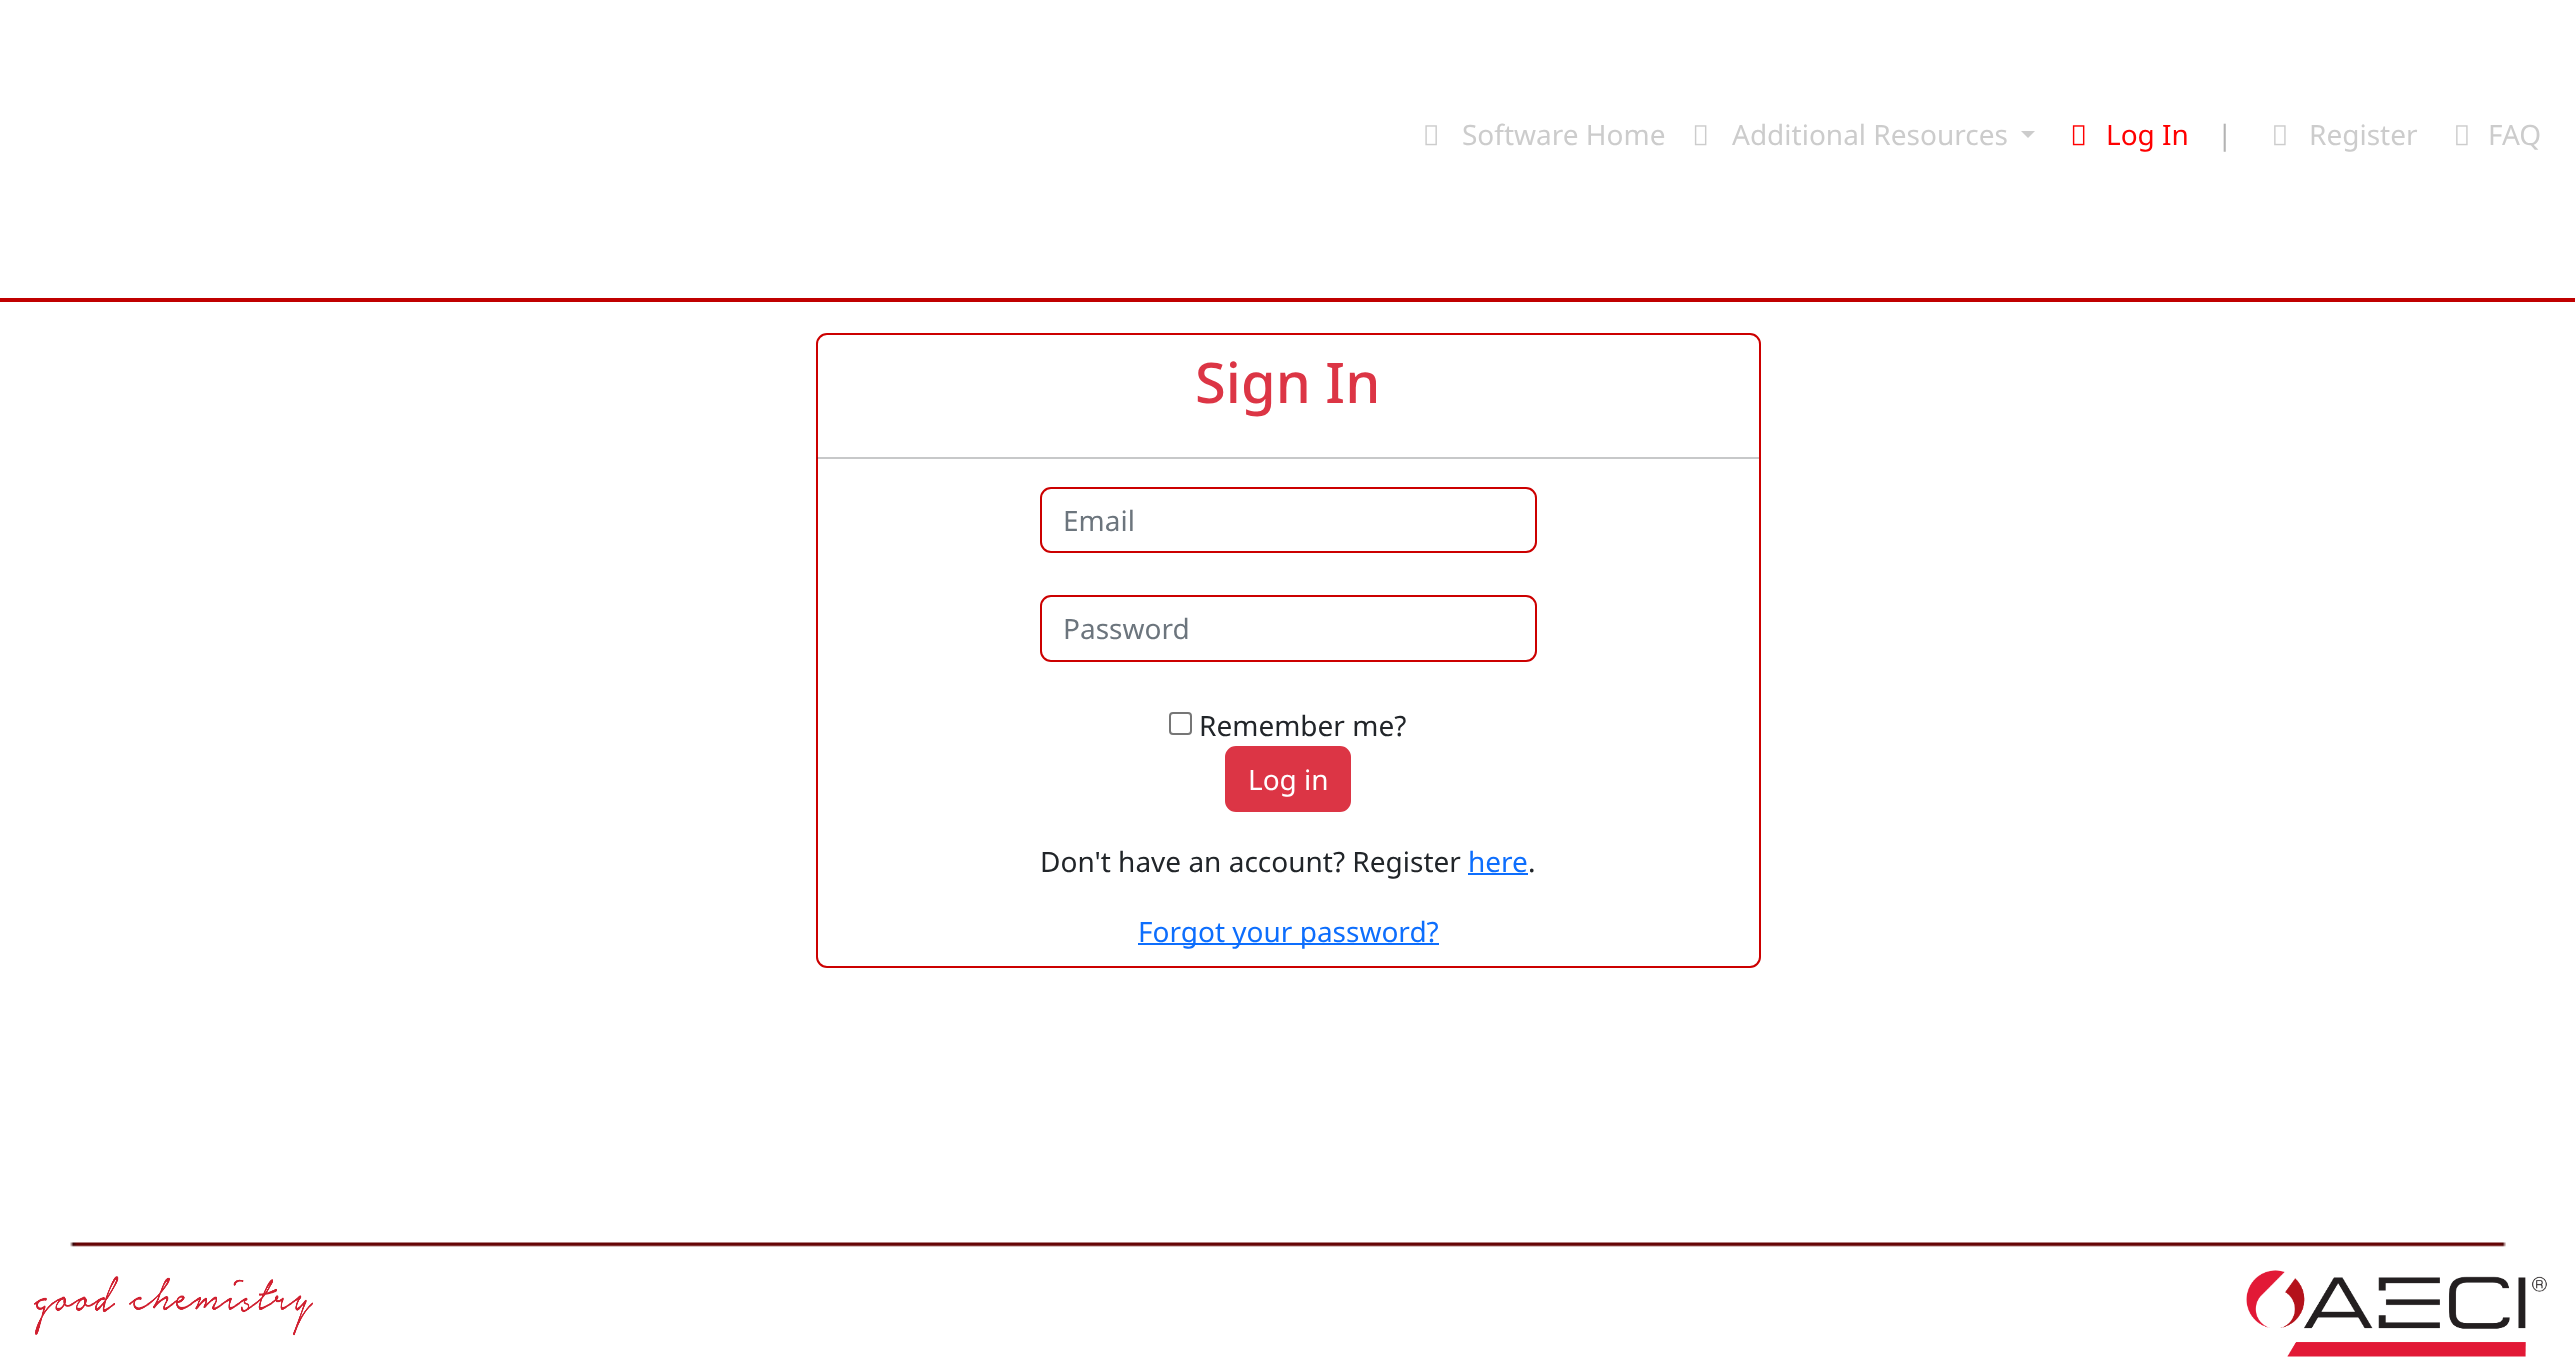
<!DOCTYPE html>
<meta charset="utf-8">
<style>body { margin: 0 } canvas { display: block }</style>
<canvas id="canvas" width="2575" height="1357"></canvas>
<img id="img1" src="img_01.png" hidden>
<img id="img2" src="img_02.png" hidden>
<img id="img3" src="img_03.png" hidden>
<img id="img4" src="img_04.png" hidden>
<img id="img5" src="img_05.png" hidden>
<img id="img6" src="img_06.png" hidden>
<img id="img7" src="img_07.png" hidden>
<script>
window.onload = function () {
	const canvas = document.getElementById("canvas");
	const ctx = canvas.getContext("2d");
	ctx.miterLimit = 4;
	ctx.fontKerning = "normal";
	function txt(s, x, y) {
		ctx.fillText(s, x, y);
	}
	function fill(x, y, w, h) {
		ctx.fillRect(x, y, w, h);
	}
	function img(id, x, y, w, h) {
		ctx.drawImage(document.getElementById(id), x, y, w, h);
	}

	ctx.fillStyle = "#FFFFFF";
	fill(0, 0, 2575, 1357);
	ctx.fillStyle = "#C00000";
	fill(0, 298, 2575, 4);
	img("img1", 1425, 125, 12, 21);
	img("img2", 1694, 125, 13, 21);
	ctx.fillStyle = "#CCCCCC";
	ctx.beginPath();
	ctx.moveTo(2021, 131);
	ctx.lineTo(2035, 131);
	ctx.lineTo(2028, 138);
	ctx.closePath();
	ctx.fill();
	img("img3", 2072, 125, 13, 21);
	img("img4", 2274, 125, 12, 21);
	img("img4", 2456, 125, 12, 21);
	ctx.beginPath();
	ctx.roundRect(817, 334, 943, 633, 10);
	ctx.strokeStyle = "#CC0000";
	ctx.lineWidth = 2;
	ctx.stroke();
	ctx.fillStyle = "rgba(33, 37, 41, 0.25)";
	fill(817, 457, 942, 2);
	ctx.beginPath();
	ctx.roundRect(1041, 488, 495, 64, 10);
	ctx.stroke();
	ctx.beginPath();
	ctx.roundRect(1041, 596, 495, 65, 10);
	ctx.stroke();
	ctx.beginPath();
	ctx.roundRect(1170, 713, 21, 21, 3);
	ctx.strokeStyle = "#767676";
	ctx.stroke();
	ctx.fillStyle = "#DC3545";
	ctx.beginPath();
	ctx.roundRect(1226, 747, 124, 64, 10);
	ctx.fill();
	ctx.strokeStyle = "#DC3545";
	ctx.stroke();
	ctx.fillStyle = "#0D6EFD";
	fill(1468, 873, 60, 2);
	fill(1138, 943, 301, 2);
	img("img5", 70, 1242, 2436, 5);
	img("img6", 34, 1276, 279, 60);
	img("img7", 2246, 1270, 301, 87);
	ctx.font = "28px Noto Sans";
	ctx.fillStyle = "#CCCCCC";
	txt("Software Home", 1462, 145);
	txt("Additional Resources", 1732, 145);
	ctx.fillStyle = "#FF0000";
	txt("Log In", 2106, 145);
	ctx.fillStyle = "#B3B3B3";
	txt("|", 2217, 145);
	ctx.fillStyle = "#CCCCCC";
	txt("Register", 2309, 145);
	txt("FAQ", 2488, 145);
	ctx.font = "500 56px Noto Sans";
	ctx.fillStyle = "#DC3545";
	txt("Sign In", 1195, 403);
	ctx.font = "28px Noto Sans";
	ctx.fillStyle = "#6C757D";
	txt("Email", 1063, 531);
	txt("Password", 1063, 639);
	ctx.fillStyle = "#212529";
	txt("Remember me?", 1199, 736);
	ctx.fillStyle = "#FFFFFF";
	txt("Log in", 1248, 790);
	ctx.fillStyle = "#212529";
	txt("Don't have an account? Register", 1040, 872);
	ctx.fillStyle = "#0D6EFD";
	txt("here", 1468, 872);
	ctx.fillStyle = "#212529";
	txt(".", 1528, 872);
	ctx.fillStyle = "#0D6EFD";
	txt("Forgot your password?", 1138, 942);
};
</script>
